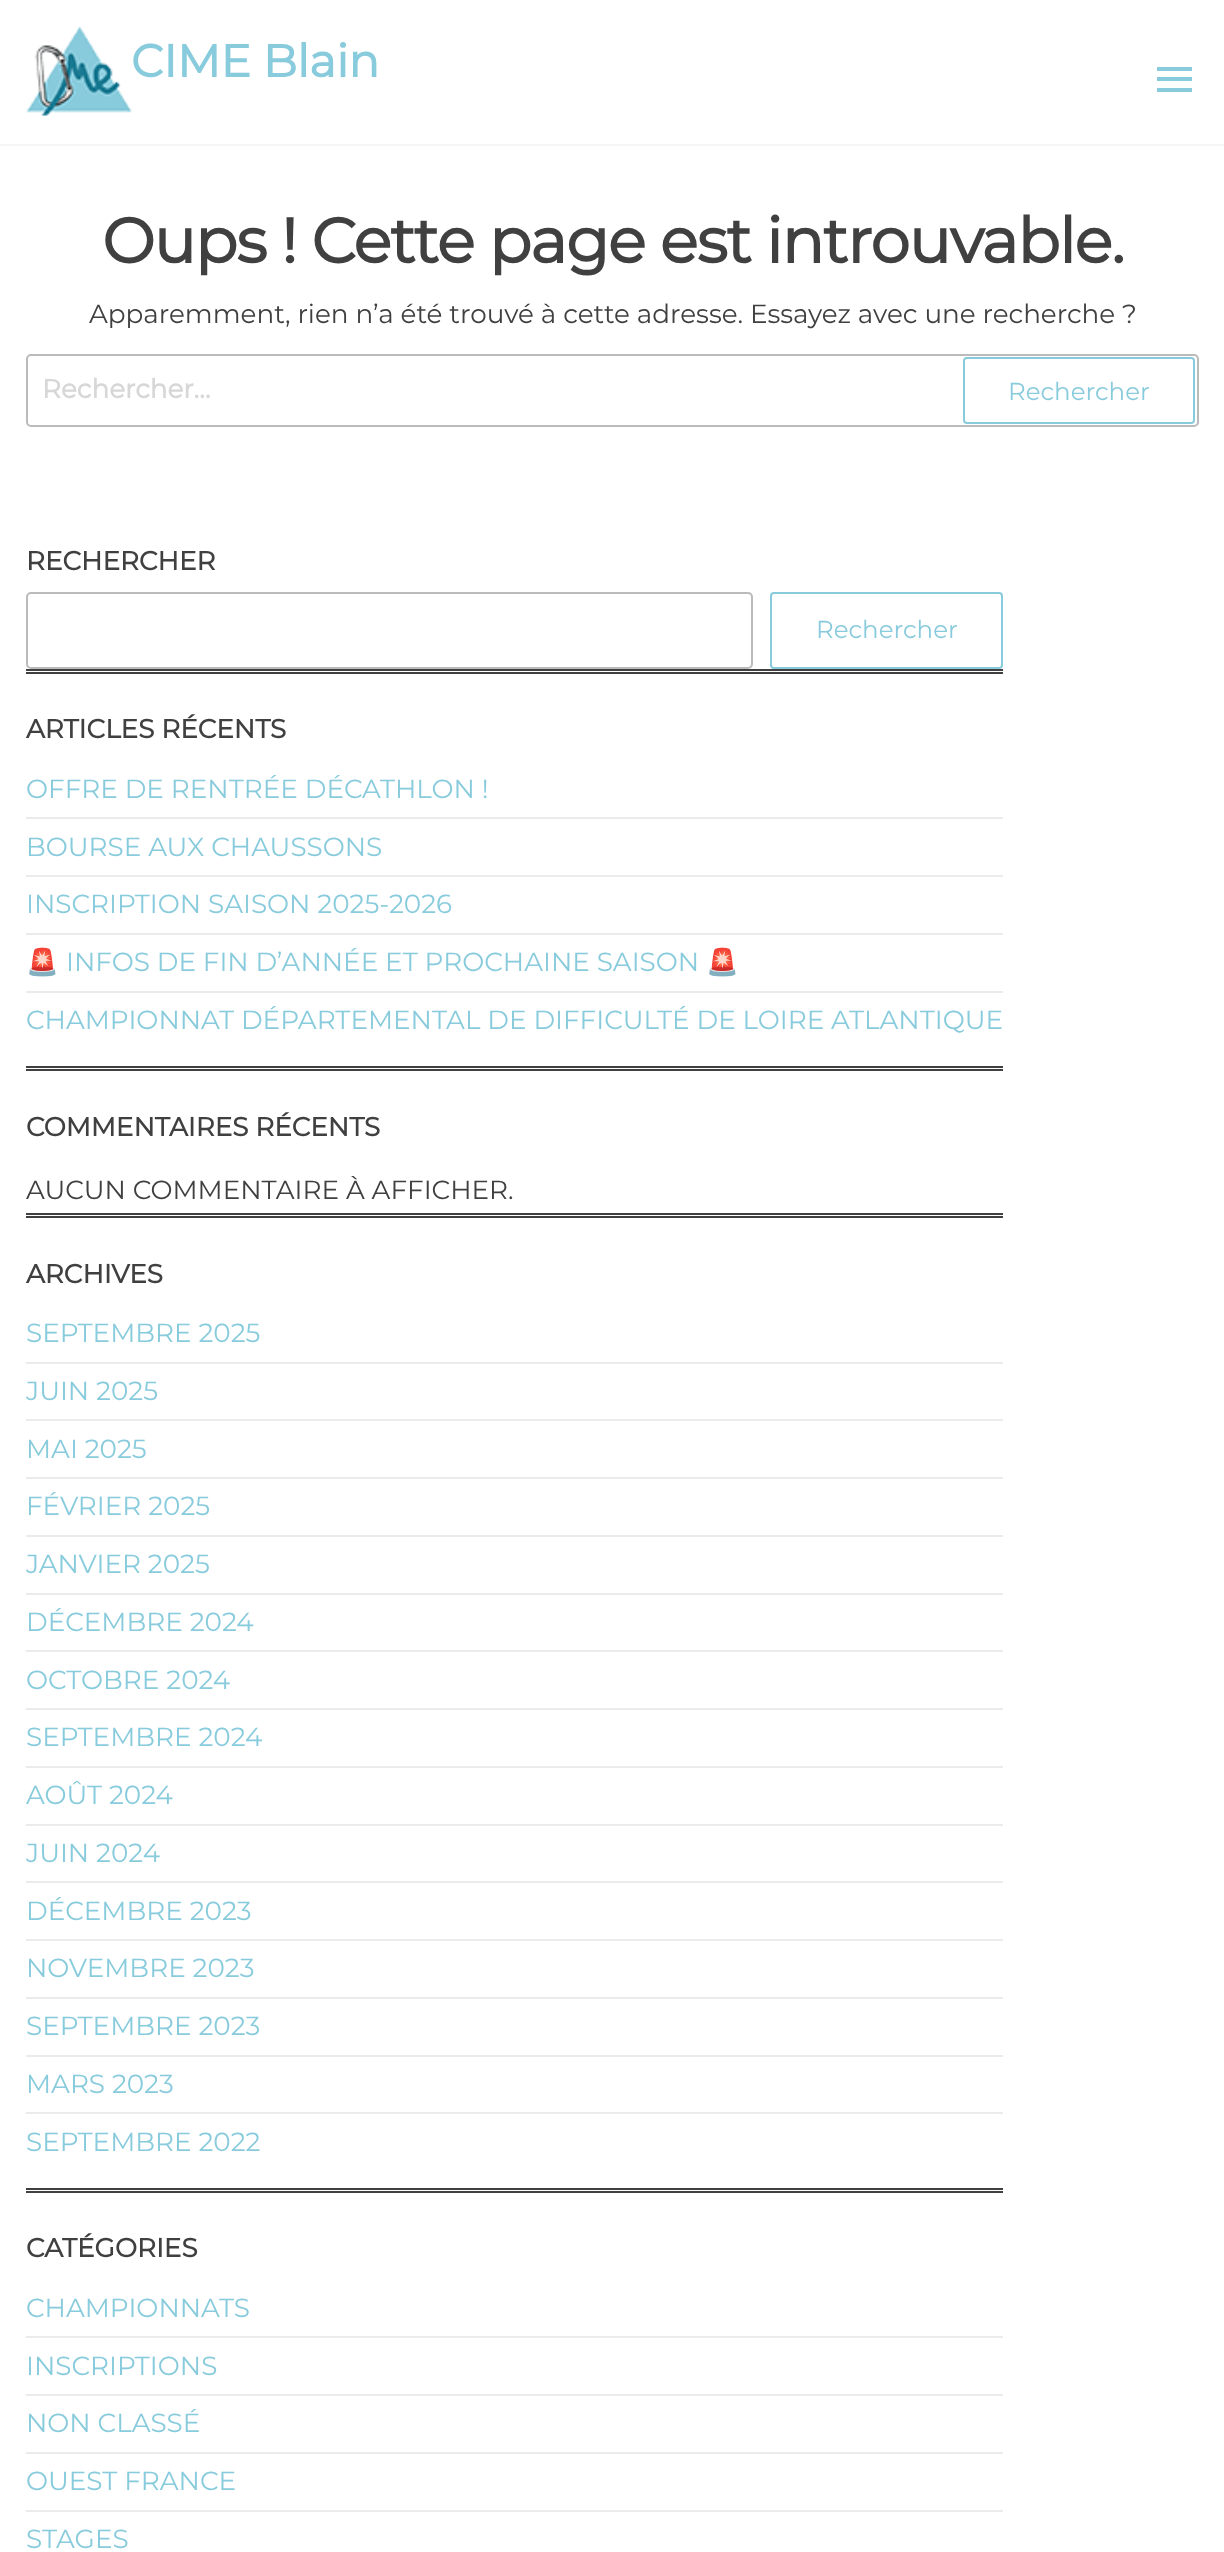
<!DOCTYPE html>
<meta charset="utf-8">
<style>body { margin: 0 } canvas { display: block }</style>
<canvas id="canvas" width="1224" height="2552"></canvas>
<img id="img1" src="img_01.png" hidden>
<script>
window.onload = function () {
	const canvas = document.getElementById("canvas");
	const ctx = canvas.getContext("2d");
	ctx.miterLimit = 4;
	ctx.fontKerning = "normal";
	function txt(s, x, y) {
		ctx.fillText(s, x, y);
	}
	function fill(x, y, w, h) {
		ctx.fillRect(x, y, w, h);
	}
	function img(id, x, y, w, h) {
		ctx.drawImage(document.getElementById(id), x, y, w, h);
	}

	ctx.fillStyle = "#FFFFFF";
	fill(0, 0, 1224, 2552);
	ctx.fillStyle = "#F6F6F6";
	fill(0, 144, 1224, 2);
	img("img1", 26, 26, 106, 90);
	ctx.fillStyle = "#88CBDC";
	fill(1157, 77, 35, 4);
	fill(1157, 67, 35, 4);
	fill(1157, 88, 35, 4);
	ctx.beginPath();
	ctx.roundRect(27, 355, 1171, 71, 4);
	ctx.strokeStyle = "#BBBBBB";
	ctx.lineWidth = 2;
	ctx.stroke();
	ctx.beginPath();
	ctx.roundRect(964, 358, 230, 65, 3);
	ctx.strokeStyle = "#88CBDC";
	ctx.stroke();
	ctx.fillStyle = "#404040";
	fill(26, 669, 977, 2);
	fill(26, 672, 977, 2);
	ctx.beginPath();
	ctx.roundRect(27, 593, 725, 75, 4);
	ctx.strokeStyle = "#BBBBBB";
	ctx.stroke();
	ctx.beginPath();
	ctx.roundRect(771, 593, 231, 75, 3);
	ctx.strokeStyle = "#88CBDC";
	ctx.stroke();
	fill(26, 1066, 977, 2);
	fill(26, 1069, 977, 2);
	ctx.fillStyle = "#EBEBEB";
	fill(26, 817, 977, 2);
	fill(26, 875, 977, 2);
	fill(26, 933, 977, 2);
	fill(26, 991, 977, 2);
	ctx.fillStyle = "#404040";
	fill(26, 1213, 977, 2);
	fill(26, 1216, 977, 2);
	fill(26, 2188, 977, 2);
	fill(26, 2191, 977, 2);
	ctx.fillStyle = "#EBEBEB";
	fill(26, 1362, 977, 2);
	fill(26, 1419, 977, 2);
	fill(26, 1477, 977, 2);
	fill(26, 1535, 977, 2);
	fill(26, 1593, 977, 2);
	fill(26, 1650, 977, 2);
	fill(26, 1708, 977, 2);
	fill(26, 1766, 977, 2);
	fill(26, 1824, 977, 2);
	fill(26, 1881, 977, 2);
	fill(26, 1939, 977, 2);
	fill(26, 1997, 977, 2);
	fill(26, 2055, 977, 2);
	fill(26, 2112, 977, 2);
	fill(26, 2336, 977, 2);
	fill(26, 2394, 977, 2);
	fill(26, 2452, 977, 2);
	fill(26, 2510, 977, 2);
	ctx.font = "bold 45.5px Montserrat";
	ctx.fillStyle = "#88CBDC";
	txt("CIME Blain", 131, 77);
	ctx.letterSpacing = "-1.25px";
	ctx.font = "bold 63px Montserrat";
	ctx.fillStyle = "#404040";
	txt("Oups ! Cette page est introuvable.", 102, 263);
	ctx.letterSpacing = "0px";
	ctx.font = "100 26.25px Montserrat";
	txt("Apparemment, rien n’a été trouvé à cette adresse. Essayez avec une recherche ?", 89, 323);
	ctx.font = "bold 26.25px Montserrat";
	ctx.fillStyle = "#D7D7D7";
	txt("Rechercher…", 42, 398);
	ctx.font = "100 24.5px Montserrat";
	ctx.fillStyle = "#88CBDC";
	txt("Rechercher", 1008, 400);
	ctx.font = "bold 26.25px Montserrat";
	ctx.fillStyle = "#404040";
	txt("RECHERCHER", 26, 570);
	ctx.font = "100 24.5px Montserrat";
	ctx.fillStyle = "#88CBDC";
	txt("Rechercher", 816, 638);
	ctx.font = "bold 26.25px Montserrat";
	ctx.fillStyle = "#404040";
	txt("ARTICLES RÉCENTS", 26, 738);
	ctx.font = "100 26.25px Montserrat";
	ctx.fillStyle = "#88CBDC";
	txt("OFFRE DE RENTRÉE DÉCATHLON !", 26, 798);
	txt("BOURSE AUX CHAUSSONS", 26, 856);
	txt("INSCRIPTION SAISON 2025-2026", 26, 913);
	ctx.font = "26.25px Noto Color Emoji";
	txt("🚨", 26, 971);
	ctx.font = "100 26.25px Montserrat";
	txt("INFOS DE FIN D’ANNÉE ET PROCHAINE SAISON", 66, 971);
	ctx.font = "26.25px Noto Color Emoji";
	txt("🚨", 706, 971);
	ctx.font = "100 26.25px Montserrat";
	txt("CHAMPIONNAT DÉPARTEMENTAL DE DIFFICULTÉ DE LOIRE ATLANTIQUE", 26, 1029);
	ctx.font = "bold 26.25px Montserrat";
	ctx.fillStyle = "#404040";
	txt("COMMENTAIRES RÉCENTS", 26, 1136);
	ctx.font = "100 26.25px Montserrat";
	txt("AUCUN COMMENTAIRE À AFFICHER.", 26, 1199);
	ctx.font = "bold 26.25px Montserrat";
	txt("ARCHIVES", 26, 1283);
	ctx.font = "100 26.25px Montserrat";
	ctx.fillStyle = "#88CBDC";
	txt("SEPTEMBRE 2025", 26, 1342);
	txt("JUIN 2025", 26, 1400);
	txt("MAI 2025", 26, 1458);
	txt("FÉVRIER 2025", 26, 1515);
	txt("JANVIER 2025", 26, 1573);
	txt("DÉCEMBRE 2024", 26, 1631);
	txt("OCTOBRE 2024", 26, 1689);
	txt("SEPTEMBRE 2024", 26, 1746);
	txt("AOÛT 2024", 26, 1804);
	txt("JUIN 2024", 26, 1862);
	txt("DÉCEMBRE 2023", 26, 1920);
	txt("NOVEMBRE 2023", 26, 1977);
	txt("SEPTEMBRE 2023", 26, 2035);
	txt("MARS 2023", 26, 2093);
	txt("SEPTEMBRE 2022", 26, 2151);
	ctx.font = "bold 26.25px Montserrat";
	ctx.fillStyle = "#404040";
	txt("CATÉGORIES", 26, 2257);
	ctx.font = "100 26.25px Montserrat";
	ctx.fillStyle = "#88CBDC";
	txt("CHAMPIONNATS", 26, 2317);
	txt("INSCRIPTIONS", 26, 2375);
	txt("NON CLASSÉ", 26, 2432);
	txt("OUEST FRANCE", 26, 2490);
	txt("STAGES", 26, 2548);
};
</script>
